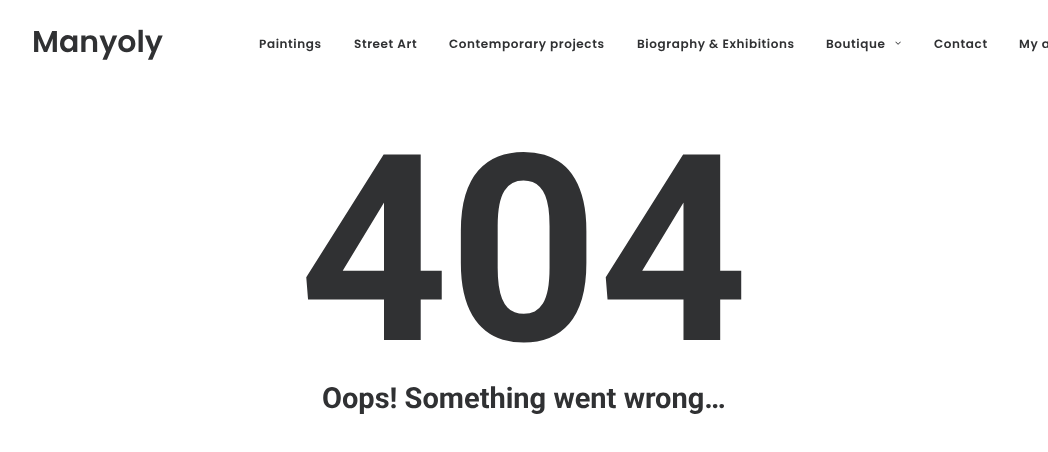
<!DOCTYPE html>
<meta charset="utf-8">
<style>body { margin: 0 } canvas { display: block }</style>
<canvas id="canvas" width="1048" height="452"></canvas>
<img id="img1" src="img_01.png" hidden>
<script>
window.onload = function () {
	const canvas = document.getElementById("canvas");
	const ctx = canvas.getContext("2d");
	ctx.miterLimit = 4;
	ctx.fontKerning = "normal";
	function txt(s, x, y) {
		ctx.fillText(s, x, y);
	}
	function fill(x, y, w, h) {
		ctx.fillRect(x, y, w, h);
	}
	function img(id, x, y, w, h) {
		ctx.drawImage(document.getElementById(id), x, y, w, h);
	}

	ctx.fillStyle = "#FFFFFF";
	fill(0, 0, 1048, 452);
	img("img1", 895, 41, 6, 4);
	ctx.font = "600 30px Poppins";
	ctx.fillStyle = "#303133";
	txt("Manyoly", 32, 52);
	ctx.letterSpacing = "0.6px";
	ctx.font = "600 12px Poppins";
	txt("Paintings", 259, 48);
	txt("Street Art", 354, 48);
	txt("Contemporary projects", 449, 48);
	txt("Biography & Exhibitions", 637, 48);
	txt("Boutique", 826, 48);
	txt("Contact", 934, 48);
	txt("My a", 1019, 48);
	ctx.letterSpacing = "0px";
	ctx.font = "bold 261px Roboto";
	txt("404", 299, 340);
	ctx.font = "bold 29px Roboto";
	txt("Oops! Something went wrong…", 322, 408);
};
</script>
